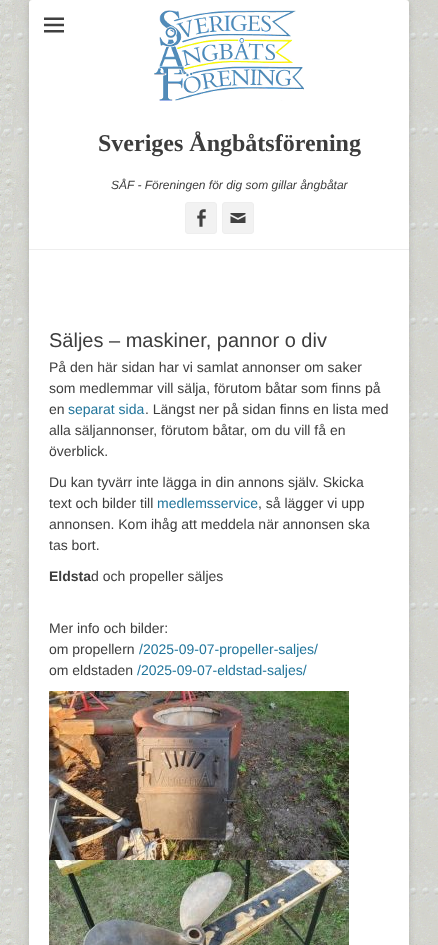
<!DOCTYPE html>
<meta charset="utf-8">
<style>body { margin: 0 } canvas { display: block }</style>
<canvas id="canvas" width="438" height="945"></canvas>
<img id="img1" src="img_01.png" hidden>
<img id="img2" src="img_02.png" hidden>
<img id="img3" src="img_03.png" hidden>
<img id="img4" src="img_04.png" hidden>
<img id="img5" src="img_05.png" hidden>
<img id="img6" src="img_06.png" hidden>
<img id="img7" src="img_07.png" hidden>
<script>
window.onload = function () {
	const canvas = document.getElementById("canvas");
	const ctx = canvas.getContext("2d");
	ctx.miterLimit = 4;
	ctx.fontKerning = "normal";
	function txt(s, x, y) {
		ctx.fillText(s, x, y);
	}
	function fill(x, y, w, h) {
		ctx.fillRect(x, y, w, h);
	}
	function round(x, y, w, h, r) {
		ctx.beginPath();
		ctx.roundRect(x, y, w, h, r);
		ctx.fill();
	}
	function img(id, x, y, w, h) {
		ctx.drawImage(document.getElementById(id), x, y, w, h);
	}

	ctx.fillStyle = "#FFFFFF";
	fill(0, 0, 438, 945);
	img("img1", 0, 0, 438, 945);
	ctx.fillStyle = "rgba(100, 100, 100, 0.3)";
	ctx.filter = "blur(3px)";
	ctx.beginPath();
	ctx.roundRect(29, 2, 380, 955, 3);
	ctx.fill();
	ctx.filter = "none";
	ctx.fillStyle = "#FFFFFF";
	round(29, 0, 380, 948, 3);
	img("img2", 44, 17, 20, 16);
	img("img3", 154, 10, 150, 91);
	ctx.fillStyle = "#F2F2F2";
	ctx.beginPath();
	ctx.roundRect(185.5, 202.5, 31, 31, 2.5);
	ctx.fill();
	ctx.strokeStyle = "#EEEEEE";
	ctx.stroke();
	img("img4", 197, 209, 9, 18);
	ctx.beginPath();
	ctx.roundRect(222.5, 202.5, 31, 31, 2.5);
	ctx.fill();
	ctx.stroke();
	img("img5", 230, 213, 16, 10);
	ctx.fillStyle = "#EEEEEE";
	fill(29, 249, 380, 1);
	img("img6", 49, 691, 300, 169);
	img("img7", 49, 860, 300, 85);
	ctx.font = "bold 24px Liberation Serif";
	ctx.fillStyle = "#3D3D3D";
	txt("Sveriges Ångbåtsförening", 98, 151);
	ctx.font = "italic 12px Liberation Sans";
	txt("SÅF - Föreningen för dig som gillar ångbåtar", 111, 189);
	ctx.font = "20px Liberation Sans";
	txt("Säljes – maskiner, pannor o div", 49, 347);
	ctx.font = "14px Liberation Sans";
	txt("På den här sidan har vi samlat annonser om saker", 49, 372);
	txt("som medlemmar vill sälja, förutom båtar som finns på", 49, 393);
	txt("en", 49, 414);
	ctx.fillStyle = "#21759B";
	txt("separat sida", 68, 414);
	ctx.fillStyle = "#3D3D3D";
	txt(". Längst ner på sidan finns en lista med", 145, 414);
	txt("alla säljannonser, förutom båtar, om du vill få en", 49, 435);
	txt("överblick.", 49, 456);
	txt("Du kan tyvärr inte lägga in din annons själv. Skicka", 49, 487);
	txt("text och bilder till", 49, 508);
	ctx.fillStyle = "#21759B";
	txt("medlemsservice", 157, 508);
	ctx.fillStyle = "#3D3D3D";
	txt(", så lägger vi upp", 258, 508);
	txt("annonsen. Kom ihåg att meddela när annonsen ska", 49, 529);
	txt("tas bort.", 49, 550);
	ctx.font = "bold 14px Liberation Sans";
	txt("Eldsta", 49, 581);
	ctx.font = "14px Liberation Sans";
	txt("d och propeller säljes", 91, 581);
	txt("Mer info och bilder:", 49, 633);
	txt("om propellern", 49, 654);
	ctx.fillStyle = "#21759B";
	txt("/2025-09-07-propeller-saljes/", 139, 654);
	ctx.fillStyle = "#3D3D3D";
	txt("om eldstaden", 49, 675);
	ctx.fillStyle = "#21759B";
	txt("/2025-09-07-eldstad-saljes/", 137, 675);
};
</script>
